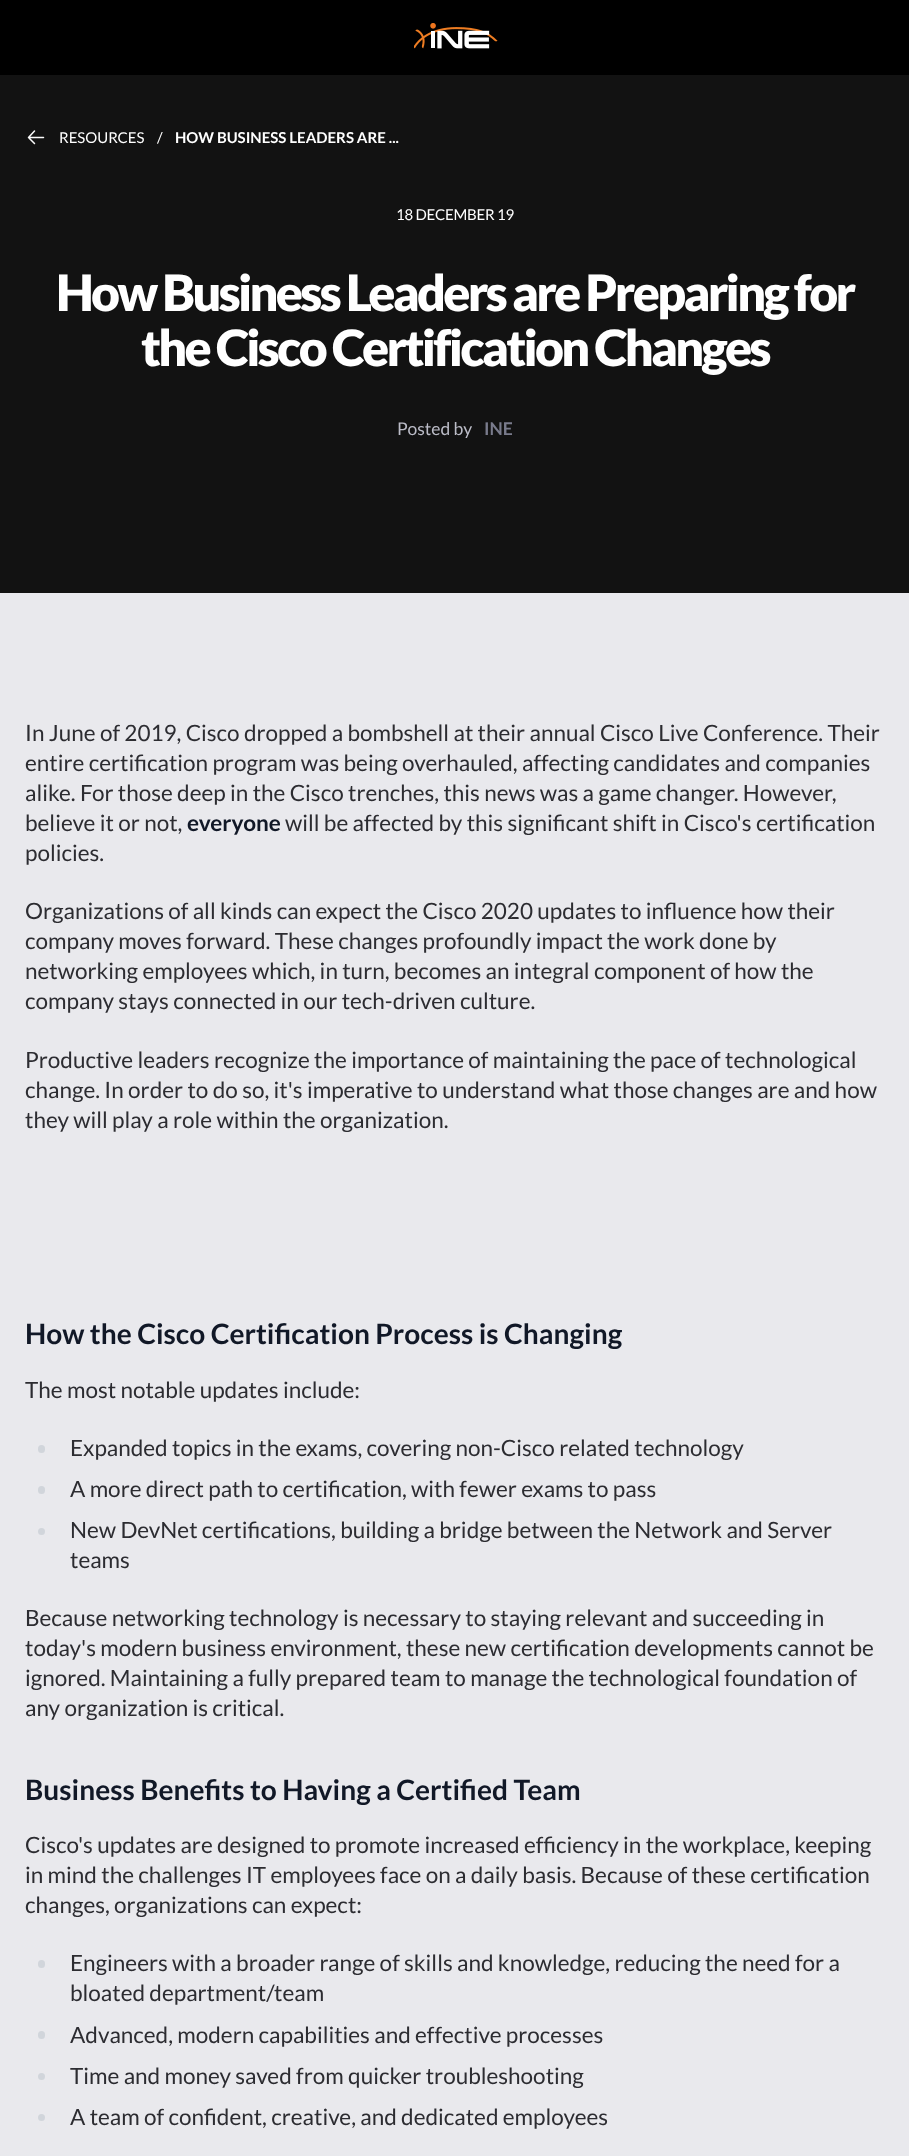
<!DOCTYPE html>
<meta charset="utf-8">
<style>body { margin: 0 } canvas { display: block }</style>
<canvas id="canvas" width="909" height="2156"></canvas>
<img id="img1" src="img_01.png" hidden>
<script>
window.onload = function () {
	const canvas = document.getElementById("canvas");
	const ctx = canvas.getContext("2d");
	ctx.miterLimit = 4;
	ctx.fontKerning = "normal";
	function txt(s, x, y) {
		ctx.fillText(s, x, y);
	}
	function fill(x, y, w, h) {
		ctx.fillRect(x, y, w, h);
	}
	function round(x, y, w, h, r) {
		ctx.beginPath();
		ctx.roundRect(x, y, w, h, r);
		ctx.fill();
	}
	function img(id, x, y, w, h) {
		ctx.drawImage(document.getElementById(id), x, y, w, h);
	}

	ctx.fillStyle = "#121212";
	fill(0, 0, 909, 2156);
	ctx.fillStyle = "#000000";
	fill(0, 0, 909, 75);
	img("img1", 414, 23, 84, 26);
	ctx.beginPath();
	ctx.moveTo(28.5, 137.5);
	ctx.lineTo(43.5, 137.5);
	ctx.moveTo(34.5, 143.5);
	ctx.lineTo(28.5, 137.5);
	ctx.lineTo(34.5, 131);
	ctx.strokeStyle = "#FAFAFA";
	ctx.lineWidth = 1.5;
	ctx.lineCap = "round";
	ctx.lineJoin = "round";
	ctx.stroke();
	ctx.fillStyle = "#E9E9ED";
	fill(0, 593, 909, 1563);
	ctx.fillStyle = "#D1D5DB";
	round(38, 1445, 7, 8, 3.5);
	round(38, 1486, 7, 8, 3.5);
	ctx.beginPath();
	ctx.arc(41.5, 1531.5, 3.5, 0, Math.PI * 2);
	ctx.fill();
	round(38, 1960, 7, 8, 3.5);
	round(38, 2031, 7, 8, 3.5);
	ctx.beginPath();
	ctx.arc(41.5, 2076.5, 3.5, 0, Math.PI * 2);
	ctx.fill();
	ctx.beginPath();
	ctx.arc(41.5, 2117.5, 3.5, 0, Math.PI * 2);
	ctx.fill();
	ctx.font = "15px Lato";
	ctx.fillStyle = "#FFFFFF";
	txt("RESOURCES", 59, 143);
	txt("/", 157, 143);
	ctx.font = "bold 15px Lato";
	txt("HOW BUSINESS LEADERS ARE ...", 175, 143);
	ctx.letterSpacing = "-0.25px";
	ctx.font = "15px Lato";
	txt("18 DECEMBER 19", 396, 220);
	ctx.letterSpacing = "-2.7px";
	ctx.font = "900 50px Lato";
	txt("How Business Leaders are Preparing for", 56, 311);
	txt("the Cisco Certification Changes", 141, 366);
	ctx.letterSpacing = "0px";
	ctx.font = "17.5px Lato";
	ctx.fillStyle = "#BBBCC7";
	txt("Posted by", 397, 435);
	ctx.font = "bold 17.5px Lato";
	ctx.fillStyle = "#797B8C";
	txt("INE", 484, 435);
	ctx.font = "22.5px Lato";
	ctx.fillStyle = "#2C2C31";
	txt("In June of 2019, Cisco dropped a bombshell at their annual Cisco Live Conference. Their", 25, 741);
	txt("entire certification program was being overhauled, affecting candidates and companies", 25, 771);
	txt("alike. For those deep in the Cisco trenches, this news was a game changer. However,", 25, 801);
	txt("believe it or not,", 25, 831);
	ctx.font = "bold 22.5px Lato";
	ctx.fillStyle = "#111827";
	txt("everyone", 187, 831);
	ctx.font = "22.5px Lato";
	ctx.fillStyle = "#2C2C31";
	txt("will be affected by this significant shift in Cisco's certification", 285, 831);
	txt("policies.", 25, 861);
	txt("Organizations of all kinds can expect the Cisco 2020 updates to influence how their", 25, 919);
	txt("company moves forward. These changes profoundly impact the work done by", 25, 949);
	txt("networking employees which, in turn, becomes an integral component of how the", 25, 979);
	txt("company stays connected in our tech-driven culture.", 25, 1009);
	txt("Productive leaders recognize the importance of maintaining the pace of technological", 25, 1068);
	txt("change. In order to do so, it's imperative to understand what those changes are and how", 25, 1098);
	txt("they will play a role within the organization.", 25, 1128);
	ctx.font = "bold 28.1px Lato";
	ctx.fillStyle = "#111827";
	txt("How the Cisco Certification Process is Changing", 25, 1344);
	ctx.font = "22.5px Lato";
	ctx.fillStyle = "#2C2C31";
	txt("The most notable updates include:", 25, 1398);
	txt("Expanded topics in the exams, covering non-Cisco related technology", 70, 1456);
	txt("A more direct path to certification, with fewer exams to pass", 70, 1497);
	txt("New DevNet certifications, building a bridge between the Network and Server", 70, 1538);
	txt("teams", 70, 1568);
	txt("Because networking technology is necessary to staying relevant and succeeding in", 25, 1626);
	txt("today's modern business environment, these new certification developments cannot be", 25, 1656);
	txt("ignored. Maintaining a fully prepared team to manage the technological foundation of", 25, 1686);
	txt("any organization is critical.", 25, 1716);
	ctx.font = "bold 28.1px Lato";
	ctx.fillStyle = "#111827";
	txt("Business Benefits to Having a Certified Team", 25, 1800);
	ctx.font = "22.5px Lato";
	ctx.fillStyle = "#2C2C31";
	txt("Cisco's updates are designed to promote increased efficiency in the workplace, keeping", 25, 1853);
	txt("in mind the challenges IT employees face on a daily basis. Because of these certification", 25, 1883);
	txt("changes, organizations can expect:", 25, 1913);
	txt("Engineers with a broader range of skills and knowledge, reducing the need for a", 70, 1971);
	txt("bloated department/team", 70, 2001);
	txt("Advanced, modern capabilities and effective processes", 70, 2043);
	txt("Time and money saved from quicker troubleshooting", 70, 2084);
	txt("A team of confident, creative, and dedicated employees", 70, 2125);
};
</script>
